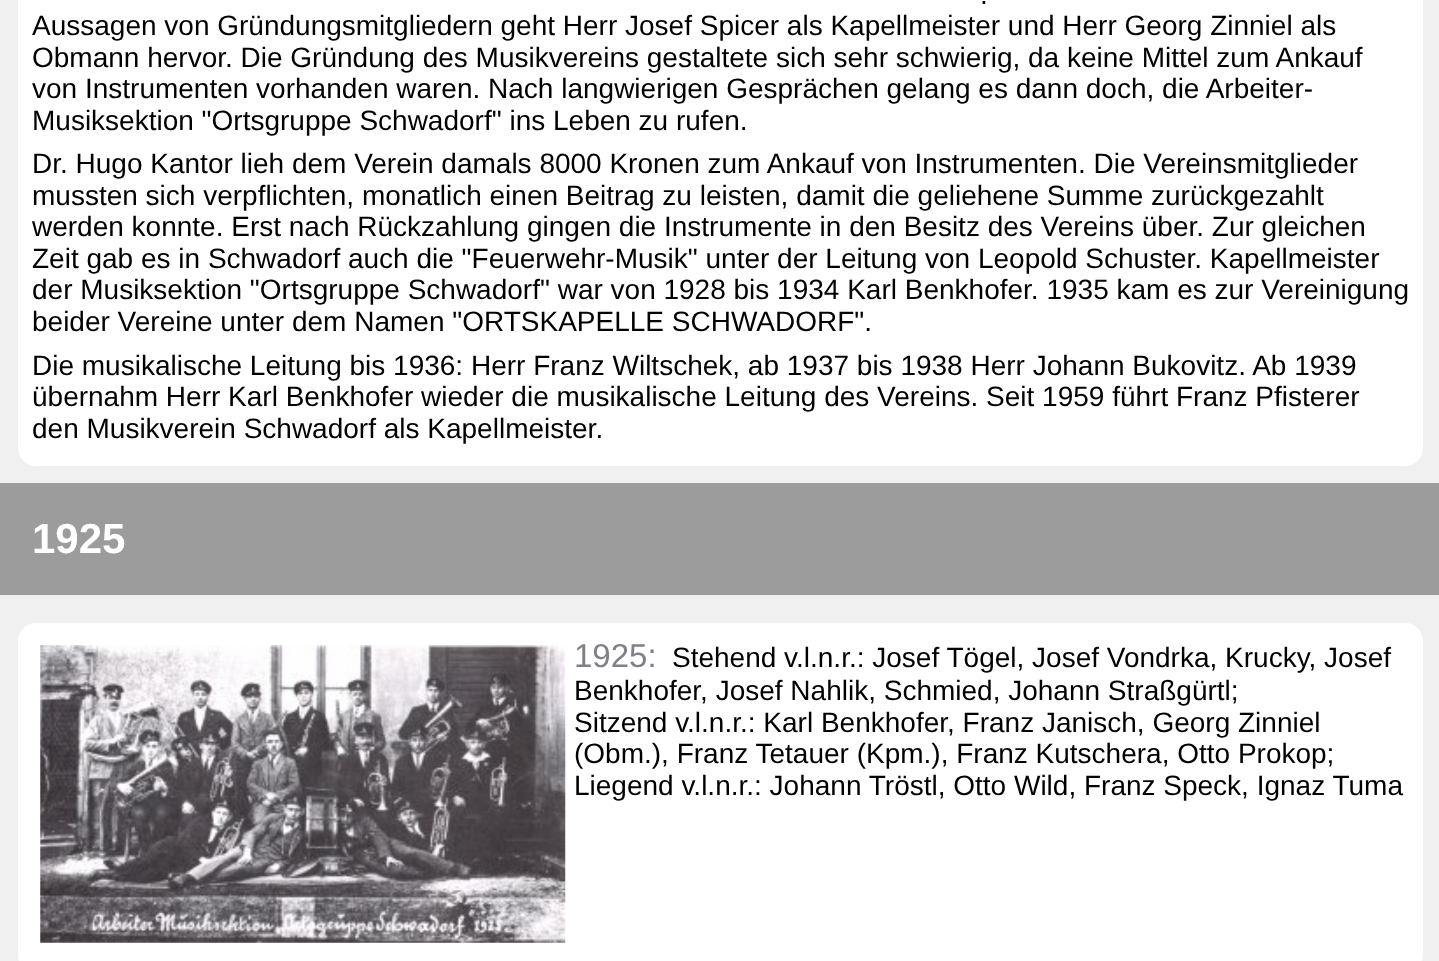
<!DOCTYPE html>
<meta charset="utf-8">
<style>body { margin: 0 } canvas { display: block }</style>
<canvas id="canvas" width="1439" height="961"></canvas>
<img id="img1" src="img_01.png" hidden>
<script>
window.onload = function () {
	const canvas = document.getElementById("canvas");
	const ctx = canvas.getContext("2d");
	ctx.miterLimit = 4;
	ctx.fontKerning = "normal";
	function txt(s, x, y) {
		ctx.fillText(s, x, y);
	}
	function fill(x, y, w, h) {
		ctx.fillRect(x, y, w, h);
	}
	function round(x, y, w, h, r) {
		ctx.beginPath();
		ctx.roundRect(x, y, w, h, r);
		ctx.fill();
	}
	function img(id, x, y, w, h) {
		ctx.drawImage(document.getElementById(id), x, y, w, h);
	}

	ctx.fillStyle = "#F0F0F0";
	fill(0, 0, 1439, 961);
	ctx.fillStyle = "#FFFFFF";
	round(18, -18, 1405, 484, 18);
	ctx.fillStyle = "#9C9C9C";
	fill(0, 483, 1439, 112);
	ctx.fillStyle = "#FFFFFF";
	round(18, 623, 1405, 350, 18);
	img("img1", 40, 645, 526, 298);
	ctx.font = "28px Liberation Sans";
	ctx.fillStyle = "#000000";
	txt(".", 980, 4);
	txt("Aussagen von Gründungsmitgliedern geht Herr Josef Spicer als Kapellmeister und Herr Georg Zinniel als", 32, 35);
	txt("Obmann hervor. Die Gründung des Musikvereins gestaltete sich sehr schwierig, da keine Mittel zum Ankauf", 32, 67);
	txt("von Instrumenten vorhanden waren. Nach langwierigen Gesprächen gelang es dann doch, die Arbeiter-", 32, 98);
	txt("Musiksektion \"Ortsgruppe Schwadorf\" ins Leben zu rufen.", 32, 130);
	txt("Dr. Hugo Kantor lieh dem Verein damals 8000 Kronen zum Ankauf von Instrumenten. Die Vereinsmitglieder", 32, 173);
	txt("mussten sich verpflichten, monatlich einen Beitrag zu leisten, damit die geliehene Summe zurückgezahlt", 32, 205);
	txt("werden konnte. Erst nach Rückzahlung gingen die Instrumente in den Besitz des Vereins über. Zur gleichen", 32, 236);
	txt("Zeit gab es in Schwadorf auch die \"Feuerwehr-Musik\" unter der Leitung von Leopold Schuster. Kapellmeister", 32, 268);
	txt("der Musiksektion \"Ortsgruppe Schwadorf\" war von 1928 bis 1934 Karl Benkhofer. 1935 kam es zur Vereinigung", 32, 299);
	txt("beider Vereine unter dem Namen \"ORTSKAPELLE SCHWADORF\".", 32, 331);
	txt("Die musikalische Leitung bis 1936: Herr Franz Wiltschek, ab 1937 bis 1938 Herr Johann Bukovitz. Ab 1939", 32, 375);
	txt("übernahm Herr Karl Benkhofer wieder die musikalische Leitung des Vereins. Seit 1959 führt Franz Pfisterer", 32, 406);
	txt("den Musikverein Schwadorf als Kapellmeister.", 32, 438);
	ctx.font = "bold 42px Liberation Sans";
	ctx.fillStyle = "#FFFFFF";
	txt("1925", 32, 553);
	ctx.font = "33px Liberation Sans";
	ctx.fillStyle = "#808088";
	txt("1925:", 574, 667);
	ctx.font = "28px Liberation Sans";
	ctx.fillStyle = "#000000";
	txt("Stehend v.l.n.r.: Josef Tögel, Josef Vondrka, Krucky, Josef", 672, 667);
	txt("Benkhofer, Josef Nahlik, Schmied, Johann Straßgürtl;", 574, 700);
	txt("Sitzend v.l.n.r.: Karl Benkhofer, Franz Janisch, Georg Zinniel", 574, 732);
	txt("(Obm.), Franz Tetauer (Kpm.), Franz Kutschera, Otto Prokop;", 574, 763);
	txt("Liegend v.l.n.r.: Johann Tröstl, Otto Wild, Franz Speck, Ignaz Tuma", 574, 795);
};
</script>
